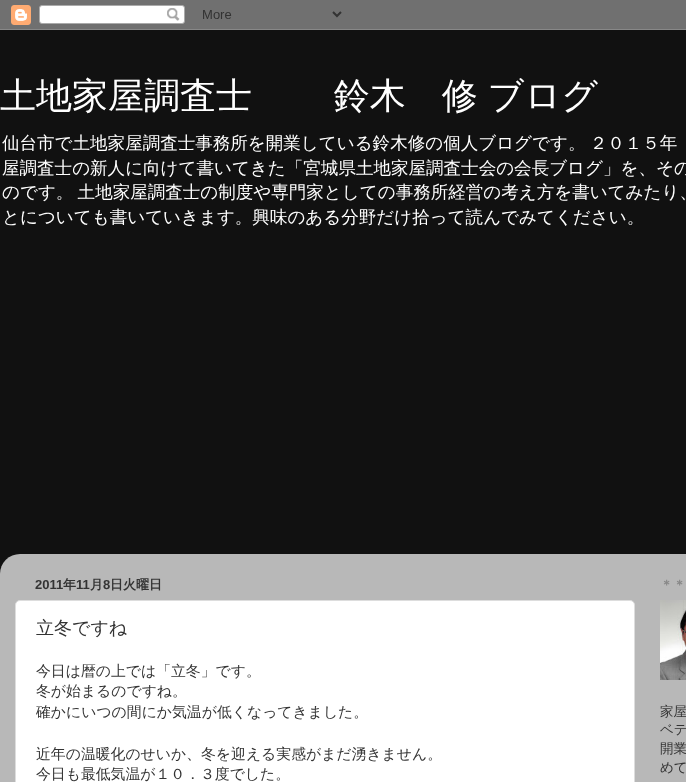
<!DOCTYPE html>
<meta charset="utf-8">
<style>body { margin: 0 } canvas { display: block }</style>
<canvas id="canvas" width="686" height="782"></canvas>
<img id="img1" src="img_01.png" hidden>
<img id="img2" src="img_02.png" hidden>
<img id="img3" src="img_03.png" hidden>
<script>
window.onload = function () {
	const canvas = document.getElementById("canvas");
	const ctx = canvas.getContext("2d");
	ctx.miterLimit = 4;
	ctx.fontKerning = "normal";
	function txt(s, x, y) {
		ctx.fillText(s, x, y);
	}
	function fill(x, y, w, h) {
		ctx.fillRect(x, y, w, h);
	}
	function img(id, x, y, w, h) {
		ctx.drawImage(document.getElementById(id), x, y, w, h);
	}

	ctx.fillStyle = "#111111";
	fill(0, 0, 686, 782);
	img("img1", 0, 0, 686, 30);
	img("img2", 0, 554, 686, 228);
	ctx.fillStyle = "#FFFFFF";
	ctx.beginPath();
	ctx.roundRect(15.5, 600.5, 619, 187, 4.5);
	ctx.fill();
	ctx.strokeStyle = "#DDDDDD";
	ctx.stroke();
	img("img3", 660, 600, 26, 80);
	ctx.wordSpacing = "-1px";
	ctx.font = "500 36px WenQuanYi Zen Hei";
	txt("土地家屋調査士 　　鈴木　修 ブログ", 0, 108);
	ctx.font = "500 17.55px WenQuanYi Zen Hei";
	txt("仙台市で土地家屋調査士事務所を開業している鈴木修の個人ブログです。 ２０１５年", 2, 149);
	ctx.wordSpacing = "0px";
	txt("屋調査士の新人に向けて書いてきた「宮城県土地家屋調査士会の会長ブログ」を、その", 2, 174);
	ctx.wordSpacing = "-1px";
	txt("のです。 土地家屋調査士の制度や専門家としての事務所経営の考え方を書いてみたり、", 2, 198);
	ctx.wordSpacing = "0px";
	txt("とについても書いていきます。興味のある分野だけ拾って読んでみてください。", 2, 223);
	ctx.font = "bold 13px Liberation Sans";
	ctx.fillStyle = "#333333";
	txt("2011", 35, 589);
	ctx.font = "bold 13px WenQuanYi Zen Hei";
	txt("年", 63, 589);
	ctx.font = "bold 13px Liberation Sans";
	txt("11", 76, 589);
	ctx.font = "bold 13px WenQuanYi Zen Hei";
	txt("月", 90, 589);
	ctx.font = "bold 13px Liberation Sans";
	txt("8", 103, 589);
	ctx.font = "bold 13px WenQuanYi Zen Hei";
	txt("日火曜日", 110, 589);
	ctx.font = "500 18px WenQuanYi Zen Hei";
	txt("立冬ですね", 36, 634);
	ctx.font = "500 14.85px WenQuanYi Zen Hei";
	txt("今日は暦の上では「立冬」です。", 36, 676);
	txt("冬が始まるのですね。", 36, 696);
	txt("確かにいつの間にか気温が低くなってきました。", 36, 717);
	txt("近年の温暖化のせいか、冬を迎える実感がまだ湧きません。", 36, 759);
	txt("今日も最低気温が１０．３度でした。", 36, 779);
	ctx.font = "bold 13px WenQuanYi Zen Hei";
	ctx.fillStyle = "#888888";
	txt("＊＊", 660, 589);
	ctx.font = "500 13.5px WenQuanYi Zen Hei";
	ctx.fillStyle = "#333333";
	txt("家屋", 660, 716);
	txt("ベテ", 660, 734);
	txt("開業", 660, 753);
	txt("めて", 660, 772);
};
</script>
